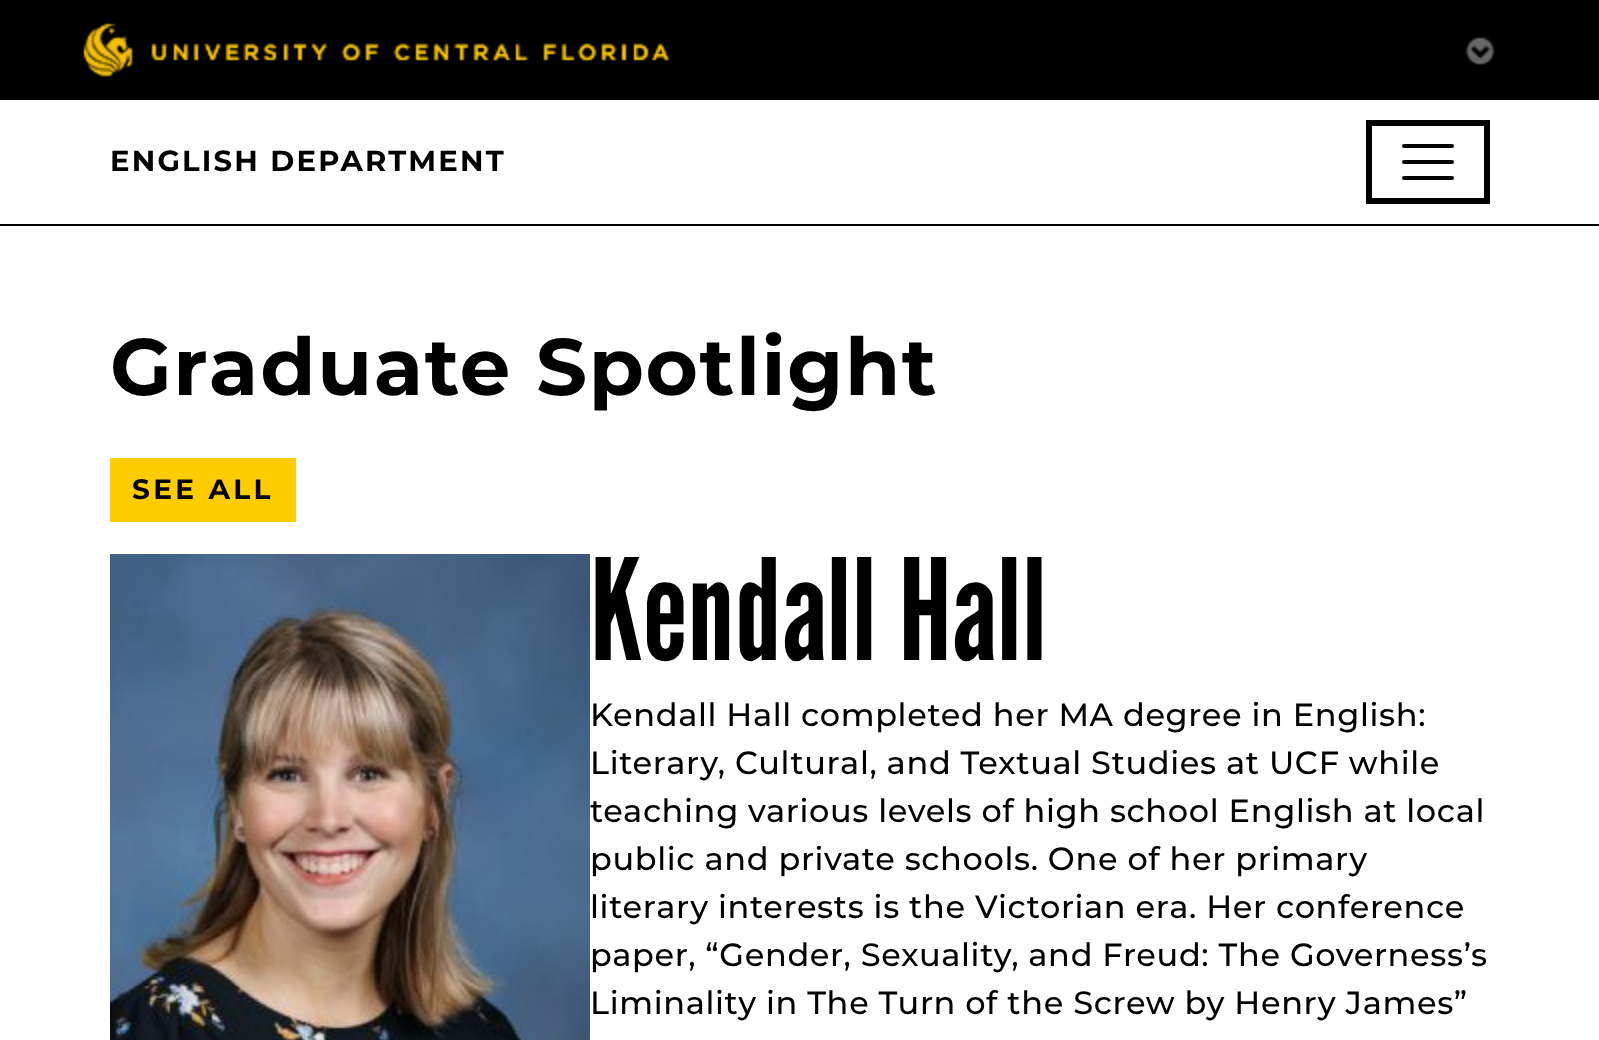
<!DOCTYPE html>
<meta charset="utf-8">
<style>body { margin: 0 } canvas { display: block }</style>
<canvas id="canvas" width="1599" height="1040"></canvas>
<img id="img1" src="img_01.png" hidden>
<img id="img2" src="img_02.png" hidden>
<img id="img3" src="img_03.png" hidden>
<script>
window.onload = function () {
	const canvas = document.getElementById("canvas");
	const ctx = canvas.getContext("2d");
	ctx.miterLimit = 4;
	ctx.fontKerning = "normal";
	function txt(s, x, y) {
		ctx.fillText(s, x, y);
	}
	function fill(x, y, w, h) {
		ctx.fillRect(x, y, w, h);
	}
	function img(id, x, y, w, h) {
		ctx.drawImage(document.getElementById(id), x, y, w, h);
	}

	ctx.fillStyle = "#FFFFFF";
	fill(0, 0, 1599, 1040);
	ctx.fillStyle = "#000000";
	fill(0, 0, 1599, 100);
	img("img1", 83, 23, 588, 54);
	img("img2", 1465, 37, 30, 28);
	fill(0, 224, 1599, 2);
	ctx.strokeStyle = "#000000";
	ctx.lineWidth = 6;
	ctx.strokeRect(1369, 123, 118, 78);
	ctx.beginPath();
	ctx.moveTo(1404, 146);
	ctx.lineTo(1452, 146);
	ctx.moveTo(1404, 162);
	ctx.lineTo(1452, 162);
	ctx.moveTo(1404, 178);
	ctx.lineTo(1452, 178);
	ctx.lineWidth = 4;
	ctx.lineCap = "round";
	ctx.stroke();
	ctx.fillStyle = "#FFCC00";
	fill(110, 458, 186, 64);
	img("img3", 110, 554, 480, 486);
	ctx.letterSpacing = "1.6px";
	ctx.font = "bold 29.1px Montserrat";
	ctx.fillStyle = "#000000";
	txt("ENGLISH DEPARTMENT", 110, 171);
	ctx.letterSpacing = "0px";
	ctx.font = "bold 80px Montserrat";
	txt("Graduate Spotlight", 110, 395);
	ctx.letterSpacing = "2.75px";
	ctx.font = "bold 28px Montserrat";
	txt("SEE ALL", 132, 499);
	ctx.letterSpacing = "0px";
	ctx.font = "140px League Gothic";
	txt("Kendall Hall", 590, 660);
	ctx.font = "500 32px Montserrat";
	txt("Kendall Hall completed her MA degree in English:", 590, 726);
	txt("Literary, Cultural, and Textual Studies at UCF while", 590, 774);
	txt("teaching various levels of high school English at local", 590, 822);
	txt("public and private schools. One of her primary", 590, 870);
	txt("literary interests is the Victorian era. Her conference", 590, 918);
	txt("paper, “Gender, Sexuality, and Freud: The Governess’s", 590, 966);
	txt("Liminality in The Turn of the Screw by Henry James”", 590, 1014);
};
</script>
